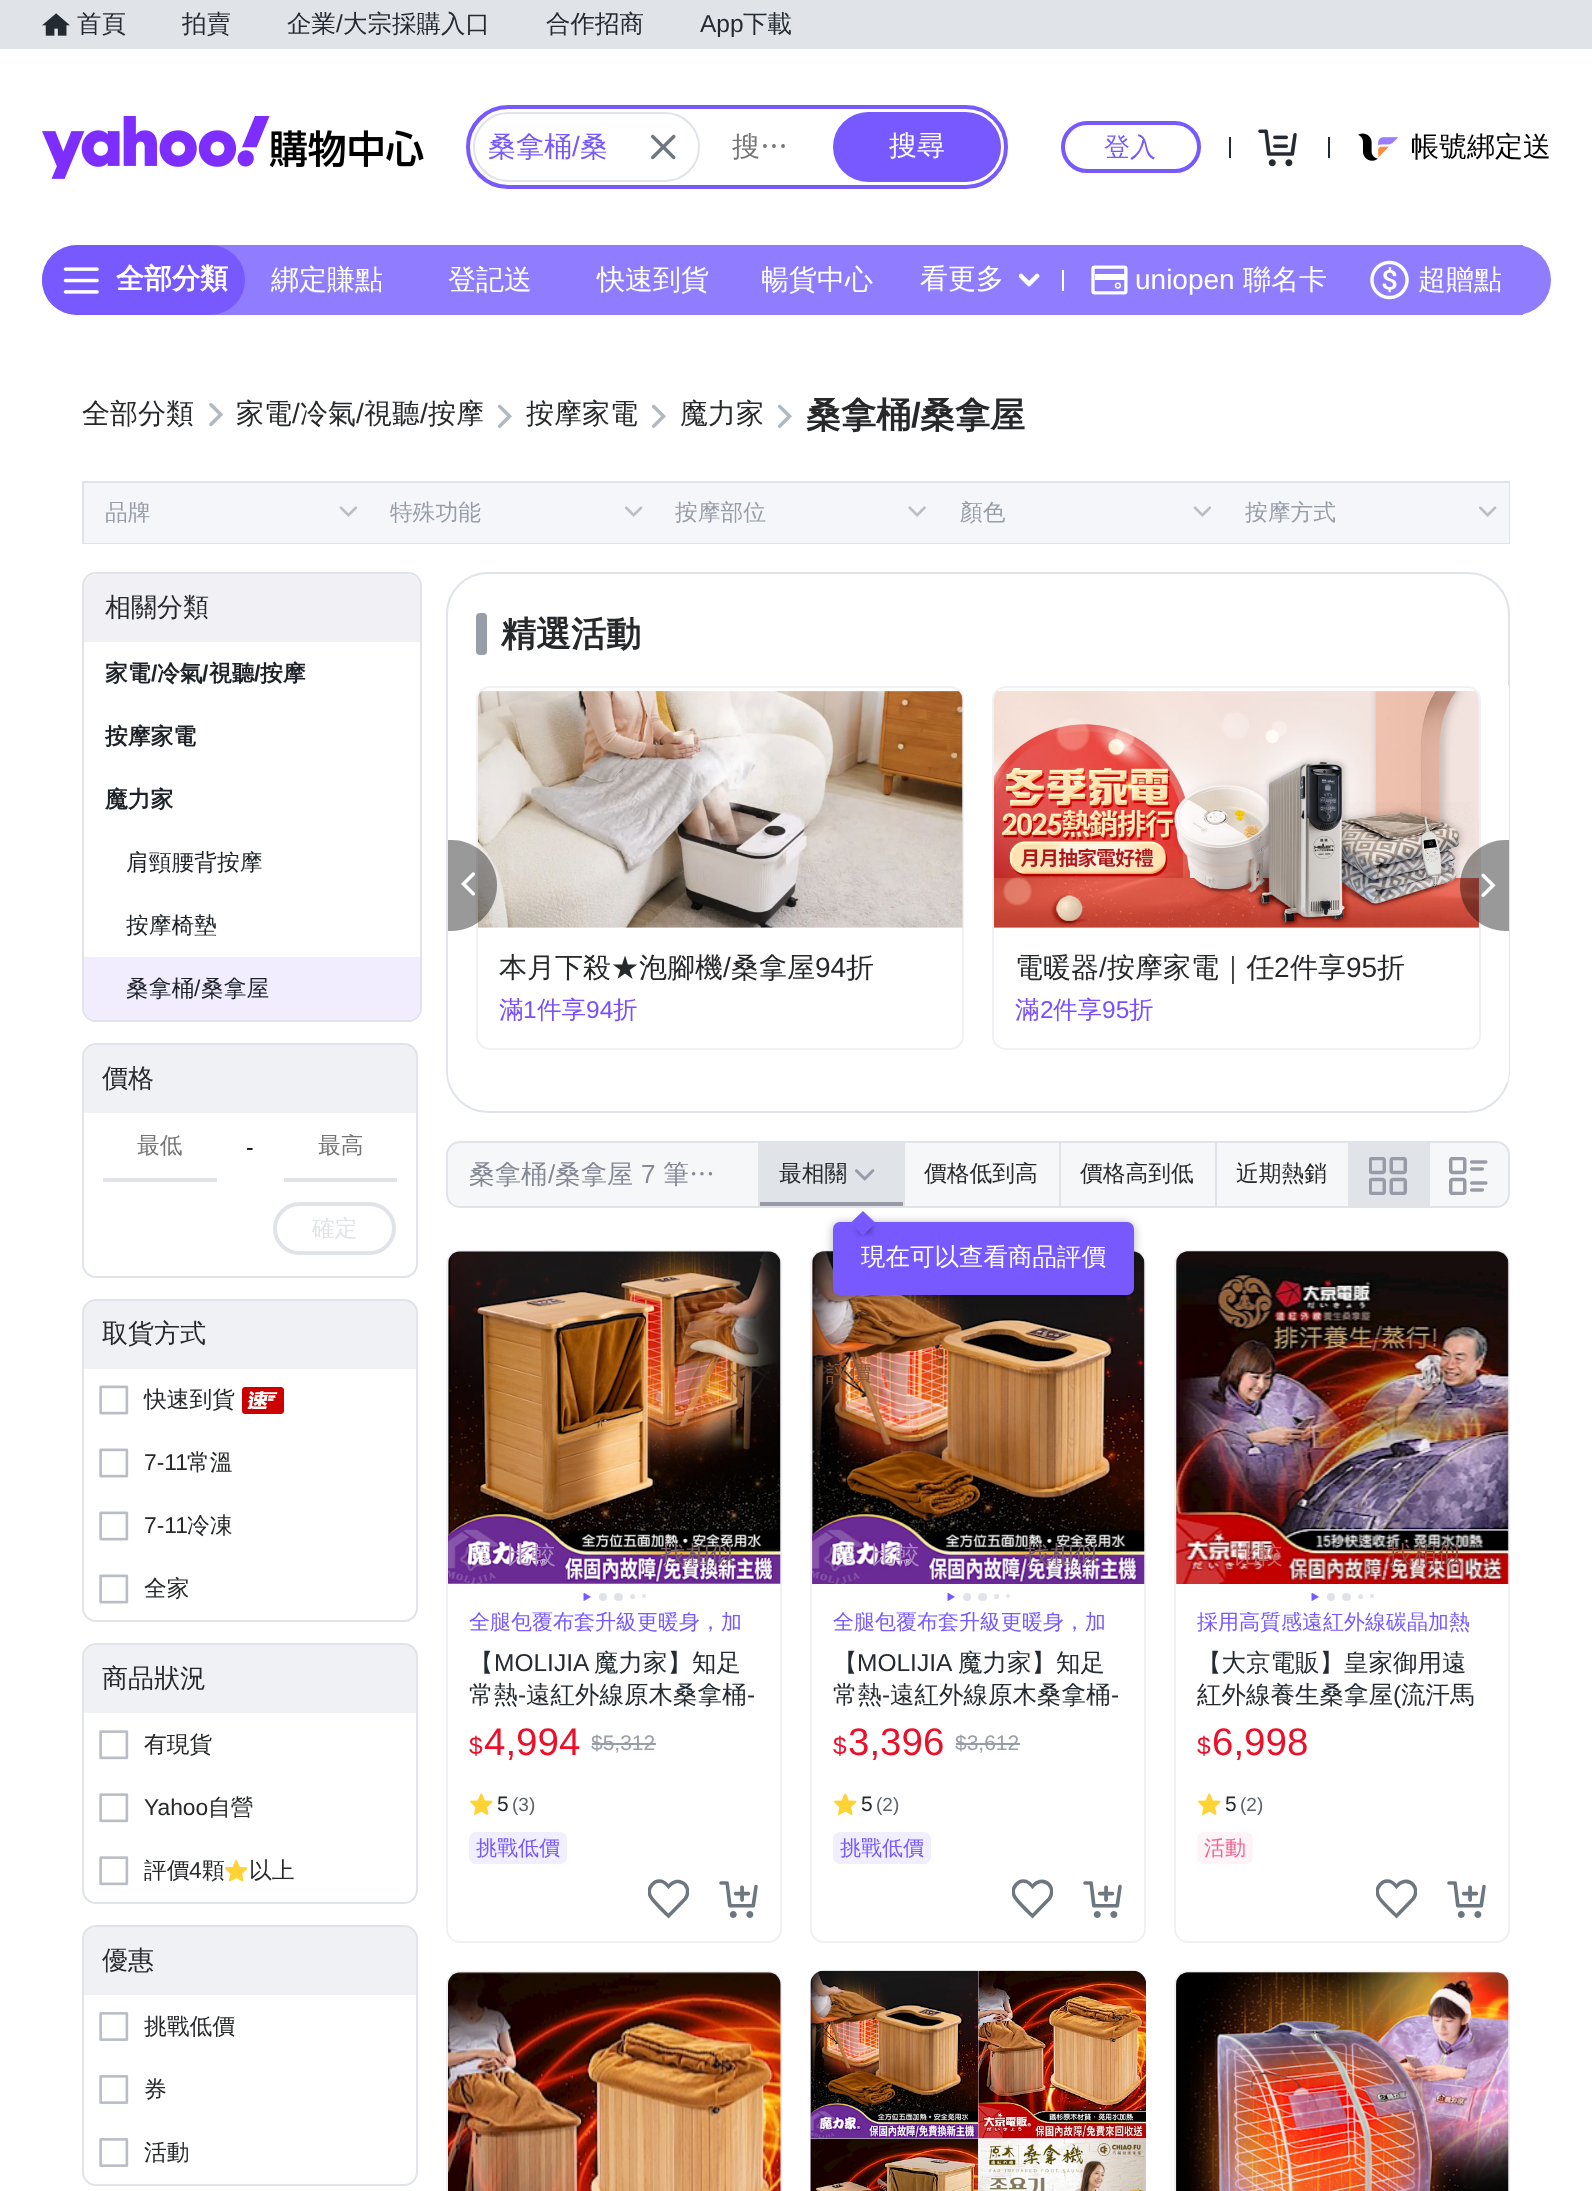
<!DOCTYPE html>
<meta charset="utf-8">
<style>body { margin: 0 } canvas { display: block }</style>
<canvas id="canvas" width="1592" height="2191"></canvas>
<img id="img1" src="img_01.png" hidden>
<img id="img2" src="img_02.png" hidden>
<img id="img3" src="img_03.png" hidden>
<img id="img4" src="img_04.png" hidden>
<img id="img5" src="img_05.png" hidden>
<img id="img6" src="img_06.png" hidden>
<img id="img7" src="img_07.png" hidden>
<img id="img8" src="img_08.png" hidden>
<img id="img9" src="img_09.png" hidden>
<img id="img10" src="img_10.png" hidden>
<img id="img11" src="img_11.png" hidden>
<img id="img12" src="img_12.png" hidden>
<img id="img13" src="img_13.png" hidden>
<img id="img14" src="img_14.png" hidden>
<img id="img15" src="img_15.png" hidden>
<img id="img16" src="img_16.png" hidden>
<img id="img17" src="img_17.png" hidden>
<img id="img18" src="img_18.png" hidden>
<img id="img19" src="img_19.png" hidden>
<img id="img20" src="img_22.png" hidden>
<img id="img21" src="img_20.png" hidden>
<img id="img22" src="img_23.png" hidden>
<img id="img23" src="img_21.png" hidden>
<img id="img24" src="img_24.png" hidden>
<img id="img25" src="img_25.png" hidden>
<img id="img26" src="img_26.png" hidden>
<img id="img27" src="img_31.png" hidden>
<img id="img28" src="img_27.png" hidden>
<img id="img29" src="img_28.png" hidden>
<img id="img30" src="img_29.png" hidden>
<img id="img31" src="img_30.png" hidden>
<img id="img32" src="img_32.png" hidden>
<img id="img33" src="img_33.png" hidden>
<img id="img34" src="img_34.png" hidden>
<img id="img35" src="img_35.png" hidden>
<img id="img36" src="img_36.png" hidden>
<img id="img37" src="img_37.png" hidden>
<img id="img38" src="img_38.png" hidden>
<script>
window.onload = function () {
	const canvas = document.getElementById("canvas");
	const ctx = canvas.getContext("2d");
	ctx.miterLimit = 4;
	ctx.fontKerning = "normal";
	function txt(s, x, y) {
		ctx.fillText(s, x, y);
	}
	function fill(x, y, w, h) {
		ctx.fillRect(x, y, w, h);
	}
	function round(x, y, w, h, r) {
		ctx.beginPath();
		ctx.roundRect(x, y, w, h, r);
		ctx.fill();
	}
	function img(id, x, y, w, h) {
		ctx.drawImage(document.getElementById(id), x, y, w, h);
	}

	ctx.fillStyle = "#FFFFFF";
	fill(0, 0, 1592, 2191);
	ctx.fillStyle = "#E0E4E9";
	fill(0, 0, 1592, 49);
	img("img1", 42, 13, 28, 23);
	img("img2", 42, 116, 382, 63);
	ctx.beginPath();
	ctx.roundRect(468, 107, 538, 80, 40);
	ctx.strokeStyle = "#7759FF";
	ctx.lineWidth = 4;
	ctx.stroke();
	ctx.beginPath();
	ctx.roundRect(474, 113, 225, 68, 34);
	ctx.strokeStyle = "#E0E4E9";
	ctx.lineWidth = 2;
	ctx.stroke();
	img("img3", 651, 134, 25, 26);
	ctx.fillStyle = "#7759FF";
	round(833, 112, 168, 70, 35);
	ctx.beginPath();
	ctx.roundRect(1063, 123, 136, 48, 24);
	ctx.strokeStyle = "#7759FF";
	ctx.lineWidth = 4;
	ctx.stroke();
	ctx.fillStyle = "#232A31";
	fill(1229, 137, 2, 21);
	img("img4", 1258, 129, 39, 38);
	fill(1328, 137, 2, 21);
	img("img5", 1358, 133, 41, 28);
	ctx.fillStyle = "#907CFF";
	round(42, 245, 1509, 70, 35);
	ctx.fillStyle = "#7759FF";
	round(42, 245, 203, 70, 35);
	img("img6", 63, 267, 36, 27);
	img("img7", 1019, 273, 21, 14);
	ctx.fillStyle = "#FFFFFF";
	fill(1062, 270, 2, 21);
	img("img8", 1091, 265, 37, 30);
	ctx.fillStyle = "#907CFF";
	fill(1516, 245, 7, 70);
	img("img9", 1370, 260, 39, 40);
	img("img10", 209, 403, 15, 24);
	img("img11", 497, 404, 15, 24);
	img("img11", 651, 404, 15, 24);
	img("img11", 777, 404, 15, 24);
	ctx.strokeStyle = "#E0E4E9";
	ctx.lineWidth = 2;
	ctx.strokeRect(83, 482, 1426, 61);
	ctx.fillStyle = "#F4F6F9";
	fill(84, 483, 1425, 60);
	img("img12", 339, 506, 18, 11);
	img("img13", 625, 506, 18, 11);
	img("img14", 908, 506, 18, 11);
	img("img12", 1193, 506, 18, 11);
	img("img13", 1479, 506, 18, 11);
	ctx.beginPath();
	ctx.roundRect(83, 573, 338, 448, 13);
	ctx.stroke();
	ctx.fillStyle = "#F1F1F5";
	ctx.beginPath();
	ctx.roundRect(84, 574, 336, 68, [12, 12, 0, 0]);
	ctx.fill();
	ctx.fillStyle = "#F1EDFF";
	ctx.beginPath();
	ctx.roundRect(84, 957, 336, 63, [0, 0, 12, 12]);
	ctx.fill();
	ctx.beginPath();
	ctx.roundRect(83, 1044, 334, 233, 13);
	ctx.stroke();
	ctx.fillStyle = "rgba(224, 228, 233, 0.5)";
	ctx.beginPath();
	ctx.roundRect(84, 1045, 333, 68, [12, 12, 0, 0]);
	ctx.fill();
	ctx.fillStyle = "#E0E4E9";
	fill(103, 1178, 114, 4);
	fill(284, 1178, 113, 4);
	ctx.beginPath();
	ctx.roundRect(275, 1204, 119, 49, 24.5);
	ctx.lineWidth = 4;
	ctx.stroke();
	ctx.beginPath();
	ctx.roundRect(83, 1300, 334, 321, 13);
	ctx.lineWidth = 2;
	ctx.stroke();
	ctx.fillStyle = "rgba(224, 228, 233, 0.5)";
	ctx.beginPath();
	ctx.roundRect(84, 1300, 333, 69, [12, 12, 0, 0]);
	ctx.fill();
	img("img15", 99, 1385, 30, 30);
	img("img16", 242, 1387, 42, 27);
	img("img15", 99, 1448, 30, 30);
	img("img15", 99, 1511, 30, 30);
	img("img15", 99, 1574, 30, 30);
	ctx.beginPath();
	ctx.roundRect(83, 1644, 334, 259, 13);
	ctx.stroke();
	ctx.beginPath();
	ctx.roundRect(84, 1645, 333, 68, [12, 12, 0, 0]);
	ctx.fill();
	img("img17", 99, 1730, 30, 30);
	img("img17", 99, 1793, 30, 30);
	img("img17", 99, 1856, 30, 30);
	img("img18", 225, 1860, 23, 22);
	ctx.beginPath();
	ctx.roundRect(83, 1926, 334, 259, 13);
	ctx.stroke();
	ctx.beginPath();
	ctx.roundRect(84, 1927, 333, 68, [12, 12, 0, 0]);
	ctx.fill();
	img("img19", 99, 2012, 30, 29);
	img("img19", 99, 2075, 30, 29);
	img("img19", 99, 2138, 30, 29);
	ctx.beginPath();
	ctx.roundRect(447, 573, 1062, 539, 41);
	ctx.stroke();
	ctx.fillStyle = "#979EA8";
	round(476, 613, 11, 42, 4);
	ctx.save();
	ctx.beginPath();
	ctx.roundRect(448, 574, 1061, 537, 40);
	ctx.clip();
	ctx.fillStyle = "#FFFFFF";
	fill(448, 686, 28, 397);
	fill(1481, 686, 28, 397);
	ctx.restore();
	ctx.beginPath();
	ctx.roundRect(477, 687, 486, 362, 13);
	ctx.strokeStyle = "#F1F1F5";
	ctx.stroke();
	img("img20", 478, 691, 485, 237);
	ctx.fillStyle = "rgba(0, 0, 0, 0.4)";
	ctx.beginPath();
	ctx.roundRect(448, 840, 49, 91, [0, 45.5, 45.5, 0]);
	ctx.fill();
	img("img21", 461, 872, 14, 24);
	ctx.beginPath();
	ctx.roundRect(993, 687, 487, 362, 13);
	ctx.stroke();
	img("img22", 994, 691, 485, 237);
	ctx.beginPath();
	ctx.roundRect(1460, 840, 49, 91, [45.5, 0, 0, 45.5]);
	ctx.fill();
	img("img23", 1481, 873, 15, 24);
	ctx.fillStyle = "#F6F7F8";
	ctx.beginPath();
	ctx.roundRect(447, 1142, 1062, 65, 13);
	ctx.fill();
	ctx.strokeStyle = "#E0E4E9";
	ctx.stroke();
	ctx.fillStyle = "#E0E4E9";
	fill(760, 1143, 143, 59);
	ctx.fillStyle = "#979BA7";
	fill(758, 1202, 145, 4);
	ctx.fillStyle = "#E0E4E9";
	fill(758, 1143, 2, 63);
	img("img24", 855, 1169, 20, 12);
	fill(903, 1143, 2, 63);
	fill(1059, 1143, 2, 63);
	fill(1215, 1143, 2, 63);
	fill(1348, 1143, 82, 63);
	img("img25", 1369, 1157, 38, 38);
	img("img26", 1449, 1157, 39, 38);
	ctx.beginPath();
	ctx.roundRect(811, 1251, 334, 691, 13);
	ctx.strokeStyle = "#F1F1F5";
	ctx.stroke();
	img("img27", 812, 1251, 333, 333);
	ctx.fillStyle = "rgba(0, 0, 20, 0.3)";
	ctx.filter = "blur(5px)";
	ctx.beginPath();
	ctx.roundRect(833, 1223, 301, 74, 7);
	ctx.fill();
	ctx.filter = "none";
	ctx.fillStyle = "#7759FF";
	round(833, 1222, 301, 73, 7);
	ctx.fillStyle = "rgba(0, 0, 20, 0.3)";
	ctx.filter = "blur(2.5px)";
	ctx.beginPath();
	ctx.rect(858, 1220, 14, 14);
	ctx.fill();
	ctx.filter = "none";
	ctx.fillStyle = "#7759FF";
	ctx.beginPath();
	ctx.moveTo(863, 1235.5);
	ctx.lineTo(850.5, 1223);
	ctx.lineTo(863, 1211);
	ctx.lineTo(875.5, 1223);
	ctx.closePath();
	ctx.fill();
	ctx.beginPath();
	ctx.roundRect(447, 1251, 334, 691, 13);
	ctx.stroke();
	img("img28", 448, 1251, 333, 333);
	img("img29", 583, 1593, 8, 8);
	ctx.fillStyle = "#E0E4E9";
	ctx.beginPath();
	ctx.arc(603, 1597, 4, 0, Math.PI * 2);
	ctx.fill();
	round(614, 1593, 9, 8, 4);
	ctx.beginPath();
	ctx.arc(632.5, 1596.5, 2.5, 0, Math.PI * 2);
	ctx.fill();
	ctx.beginPath();
	ctx.arc(644, 1596, 2, 0, Math.PI * 2);
	ctx.fill();
	ctx.fillStyle = "#979EA8";
	fill(592, 1743, 64, 2);
	img("img30", 470, 1793, 23, 22);
	ctx.fillStyle = "#F1EEFF";
	ctx.beginPath();
	ctx.roundRect(470, 1833, 96, 30, 6);
	ctx.fill();
	ctx.strokeStyle = "#F1EEFF";
	ctx.stroke();
	ctx.save();
	ctx.beginPath();
	ctx.rect(648, 1878, 41, 42);
	ctx.clip();
	ctx.beginPath();
	ctx.moveTo(685, 1884.5);
	ctx.bezierCurveTo(679.5, 1879, 673, 1881.5, 668.5, 1886.5);
	ctx.bezierCurveTo(667, 1884.5, 665, 1882.5, 662.5, 1881.5);
	ctx.bezierCurveTo(654, 1879, 647, 1888, 650, 1895.5);
	ctx.bezierCurveTo(652, 1900.5, 664.5, 1912, 668.5, 1916);
	ctx.lineTo(685, 1899);
	ctx.bezierCurveTo(688.5, 1895, 688.5, 1888.5, 685, 1884.5);
	ctx.strokeStyle = "#6E7780";
	ctx.lineWidth = 3.5;
	ctx.stroke();
	ctx.restore();
	img("img31", 719, 1881, 39, 37);
	img("img29", 947, 1593, 8, 8);
	ctx.fillStyle = "#E0E4E9";
	ctx.beginPath();
	ctx.arc(967, 1597, 4, 0, Math.PI * 2);
	ctx.fill();
	round(978, 1593, 9, 8, 4);
	ctx.beginPath();
	ctx.arc(996.5, 1596.5, 2.5, 0, Math.PI * 2);
	ctx.fill();
	ctx.beginPath();
	ctx.arc(1008, 1596, 2, 0, Math.PI * 2);
	ctx.fill();
	ctx.fillStyle = "#979EA8";
	fill(956, 1743, 64, 2);
	img("img30", 834, 1793, 23, 22);
	ctx.fillStyle = "#F1EEFF";
	ctx.beginPath();
	ctx.roundRect(834, 1833, 96, 30, 6);
	ctx.fill();
	ctx.stroke();
	ctx.save();
	ctx.beginPath();
	ctx.rect(1012, 1878, 41, 42);
	ctx.clip();
	ctx.beginPath();
	ctx.moveTo(1049, 1884.5);
	ctx.bezierCurveTo(1043.5, 1879, 1036.5, 1881.5, 1032.5, 1886.5);
	ctx.bezierCurveTo(1031, 1884.5, 1029, 1882.5, 1026.5, 1881.5);
	ctx.bezierCurveTo(1018, 1879, 1011, 1888, 1014, 1895.5);
	ctx.bezierCurveTo(1016, 1900.5, 1028.5, 1912, 1032.5, 1916);
	ctx.lineTo(1049, 1899);
	ctx.bezierCurveTo(1052.5, 1895, 1052.5, 1888.5, 1049, 1884.5);
	ctx.strokeStyle = "#6E7780";
	ctx.lineWidth = 3.5;
	ctx.stroke();
	ctx.restore();
	img("img31", 1083, 1881, 39, 37);
	ctx.beginPath();
	ctx.roundRect(1175, 1251, 334, 691, 13);
	ctx.strokeStyle = "#F1F1F5";
	ctx.stroke();
	img("img32", 1176, 1251, 333, 333);
	img("img29", 1311, 1593, 8, 8);
	ctx.fillStyle = "#E0E4E9";
	ctx.beginPath();
	ctx.arc(1331, 1597, 4, 0, Math.PI * 2);
	ctx.fill();
	round(1342, 1593, 9, 8, 4);
	ctx.beginPath();
	ctx.arc(1360.5, 1596.5, 2.5, 0, Math.PI * 2);
	ctx.fill();
	ctx.beginPath();
	ctx.arc(1372, 1596, 2, 0, Math.PI * 2);
	ctx.fill();
	img("img30", 1198, 1793, 23, 22);
	ctx.fillStyle = "#FEF4F7";
	ctx.beginPath();
	ctx.roundRect(1198, 1833, 54, 30, 6);
	ctx.fill();
	ctx.strokeStyle = "#FEF4F7";
	ctx.stroke();
	ctx.save();
	ctx.beginPath();
	ctx.rect(1376, 1878, 41, 42);
	ctx.clip();
	ctx.beginPath();
	ctx.moveTo(1413, 1884.5);
	ctx.bezierCurveTo(1407.5, 1879, 1400.5, 1881.5, 1396.5, 1886.5);
	ctx.bezierCurveTo(1395, 1884.5, 1393, 1882.5, 1390.5, 1881.5);
	ctx.bezierCurveTo(1382, 1879, 1375, 1888, 1378, 1895.5);
	ctx.bezierCurveTo(1379.5, 1900.5, 1392.5, 1912, 1396.5, 1916);
	ctx.lineTo(1413, 1899);
	ctx.bezierCurveTo(1416.5, 1895, 1416.5, 1888.5, 1413, 1884.5);
	ctx.strokeStyle = "#6E7780";
	ctx.lineWidth = 3.5;
	ctx.stroke();
	ctx.restore();
	img("img31", 1447, 1881, 39, 37);
	ctx.beginPath();
	ctx.roundRect(447, 1972, 334, 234, 13);
	ctx.strokeStyle = "#F1F1F5";
	ctx.stroke();
	img("img33", 448, 1972, 333, 219);
	ctx.fillStyle = "#F1EEFF";
	round(810, 1971, 336, 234, 14);
	img("img34", 810, 1970, 169, 169);
	img("img35", 978, 1970, 168, 169);
	img("img36", 810, 2138, 169, 53);
	img("img37", 978, 2138, 168, 53);
	ctx.beginPath();
	ctx.roundRect(1175, 1972, 334, 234, 13);
	ctx.stroke();
	img("img38", 1176, 1972, 333, 219);
	ctx.font = "500 24.5px WenQuanYi Zen Hei";
	ctx.fillStyle = "#232A31";
	txt("首頁", 77, 32);
	txt("拍賣", 182, 32);
	txt("企業", 287, 32);
	ctx.font = "24.5px Liberation Sans";
	txt("/", 336, 32);
	ctx.font = "500 24.5px WenQuanYi Zen Hei";
	txt("大宗採購入口", 343, 32);
	txt("合作招商", 546, 32);
	ctx.font = "24.5px Liberation Sans";
	txt("App", 700, 32);
	ctx.font = "500 24.5px WenQuanYi Zen Hei";
	txt("下載", 743, 32);
	ctx.font = "500 28px WenQuanYi Zen Hei";
	ctx.fillStyle = "#7759FF";
	txt("桑拿桶", 488, 156);
	ctx.font = "28px Liberation Sans";
	txt("/", 572, 156);
	ctx.font = "500 28px WenQuanYi Zen Hei";
	txt("桑", 580, 156);
	ctx.fillStyle = "#757575";
	txt("搜…", 732, 156);
	ctx.fillStyle = "#FFFFFF";
	txt("搜尋", 889, 155);
	ctx.font = "500 26px WenQuanYi Zen Hei";
	ctx.fillStyle = "#7759FF";
	txt("登入", 1104, 156);
	ctx.font = "500 28px WenQuanYi Zen Hei";
	ctx.fillStyle = "#000000";
	txt("帳號綁定送", 1411, 156);
	ctx.font = "bold 28px WenQuanYi Zen Hei";
	ctx.fillStyle = "#FFFFFF";
	txt("全部分類", 116, 288);
	ctx.font = "500 28px WenQuanYi Zen Hei";
	txt("綁定賺點", 271, 289);
	txt("登記送", 448, 289);
	txt("快速到貨", 597, 289);
	txt("暢貨中心", 761, 289);
	txt("看更多", 920, 288);
	ctx.font = "28px Liberation Sans";
	txt("uniopen", 1135, 289);
	ctx.font = "500 28px WenQuanYi Zen Hei";
	txt("聯名卡", 1243, 289);
	txt("超贈點", 1418, 289);
	ctx.fillStyle = "#26282A";
	txt("全部分類", 82, 423);
	txt("家電", 236, 423);
	ctx.font = "28px Liberation Sans";
	txt("/", 292, 423);
	ctx.font = "500 28px WenQuanYi Zen Hei";
	txt("冷氣", 300, 423);
	ctx.font = "28px Liberation Sans";
	txt("/", 356, 423);
	ctx.font = "500 28px WenQuanYi Zen Hei";
	txt("視聽", 364, 423);
	ctx.font = "28px Liberation Sans";
	txt("/", 420, 423);
	ctx.font = "500 28px WenQuanYi Zen Hei";
	txt("按摩", 428, 423);
	txt("按摩家電", 526, 423);
	txt("魔力家", 680, 423);
	ctx.font = "bold 35px WenQuanYi Zen Hei";
	txt("桑拿桶", 806, 427);
	ctx.font = "bold 35px Liberation Sans";
	txt("/", 911, 427);
	ctx.font = "bold 35px WenQuanYi Zen Hei";
	txt("桑拿屋", 920, 427);
	ctx.font = "500 22.75px WenQuanYi Zen Hei";
	ctx.fillStyle = "#979EA8";
	txt("品牌", 105, 520);
	txt("特殊功能", 390, 520);
	txt("按摩部位", 675, 520);
	txt("顏色", 960, 520);
	txt("按摩方式", 1245, 520);
	ctx.font = "500 26px WenQuanYi Zen Hei";
	ctx.fillStyle = "#26282A";
	txt("相關分類", 105, 616);
	ctx.font = "bold 22.75px WenQuanYi Zen Hei";
	ctx.fillStyle = "#1D2228";
	txt("家電", 105, 681);
	ctx.font = "bold 22.75px Liberation Sans";
	txt("/", 151, 681);
	ctx.font = "bold 22.75px WenQuanYi Zen Hei";
	txt("冷氣", 157, 681);
	ctx.font = "bold 22.75px Liberation Sans";
	txt("/", 202, 681);
	ctx.font = "bold 22.75px WenQuanYi Zen Hei";
	txt("視聽", 209, 681);
	ctx.font = "bold 22.75px Liberation Sans";
	txt("/", 254, 681);
	ctx.font = "bold 22.75px WenQuanYi Zen Hei";
	txt("按摩", 260, 681);
	txt("按摩家電", 105, 744);
	txt("魔力家", 105, 807);
	ctx.font = "500 22.75px WenQuanYi Zen Hei";
	txt("肩頸腰背按摩", 126, 870);
	txt("按摩椅墊", 126, 933);
	txt("桑拿桶", 126, 996);
	ctx.font = "22.75px Liberation Sans";
	txt("/", 194, 996);
	ctx.font = "500 22.75px WenQuanYi Zen Hei";
	txt("桑拿屋", 201, 996);
	ctx.font = "500 26px WenQuanYi Zen Hei";
	ctx.fillStyle = "#26282A";
	txt("價格", 102, 1087);
	ctx.font = "500 22.75px WenQuanYi Zen Hei";
	ctx.fillStyle = "#757575";
	txt("最低", 137, 1153);
	ctx.font = "22.75px Liberation Sans";
	ctx.fillStyle = "#000000";
	txt("-", 246, 1155);
	ctx.font = "500 22.75px WenQuanYi Zen Hei";
	ctx.fillStyle = "#757575";
	txt("最高", 318, 1153);
	ctx.fillStyle = "#E0E4E9";
	txt("確定", 312, 1236);
	ctx.font = "500 26px WenQuanYi Zen Hei";
	ctx.fillStyle = "#26282A";
	txt("取貨方式", 102, 1342);
	ctx.font = "500 22.75px WenQuanYi Zen Hei";
	txt("快速到貨", 144, 1407);
	ctx.font = "22.75px Liberation Sans";
	txt("7-11", 144, 1470);
	ctx.font = "500 22.75px WenQuanYi Zen Hei";
	txt("常溫", 187, 1470);
	ctx.font = "22.75px Liberation Sans";
	txt("7-11", 144, 1533);
	ctx.font = "500 22.75px WenQuanYi Zen Hei";
	txt("冷凍", 187, 1533);
	txt("全家", 144, 1596);
	ctx.font = "500 26px WenQuanYi Zen Hei";
	txt("商品狀況", 102, 1687);
	ctx.font = "500 22.75px WenQuanYi Zen Hei";
	txt("有現貨", 144, 1752);
	ctx.font = "22.75px Liberation Sans";
	txt("Yahoo", 144, 1815);
	ctx.font = "500 22.75px WenQuanYi Zen Hei";
	txt("自營", 208, 1815);
	txt("評價", 144, 1878);
	ctx.font = "22.75px Liberation Sans";
	txt("4", 189, 1878);
	ctx.font = "500 22.75px WenQuanYi Zen Hei";
	txt("顆", 202, 1878);
	txt("以上", 249, 1878);
	ctx.font = "500 26px WenQuanYi Zen Hei";
	txt("優惠", 102, 1969);
	ctx.font = "500 22.75px WenQuanYi Zen Hei";
	txt("挑戰低價", 144, 2034);
	txt("券", 144, 2097);
	txt("活動", 144, 2160);
	ctx.font = "bold 35px WenQuanYi Zen Hei";
	txt("精選活動", 501, 646);
	ctx.font = "500 28px WenQuanYi Zen Hei";
	txt("本月下殺★泡腳機", 499, 977);
	ctx.font = "28px Liberation Sans";
	txt("/", 723, 977);
	ctx.font = "500 28px WenQuanYi Zen Hei";
	txt("桑拿屋", 731, 977);
	ctx.font = "28px Liberation Sans";
	txt("94", 815, 977);
	ctx.font = "500 28px WenQuanYi Zen Hei";
	txt("折", 846, 977);
	ctx.font = "500 24.5px WenQuanYi Zen Hei";
	ctx.fillStyle = "#7A4DFF";
	txt("滿", 499, 1018);
	ctx.font = "24.5px Liberation Sans";
	txt("1", 523, 1018);
	ctx.font = "500 24.5px WenQuanYi Zen Hei";
	txt("件享", 537, 1018);
	ctx.font = "24.5px Liberation Sans";
	txt("94", 586, 1018);
	ctx.font = "500 24.5px WenQuanYi Zen Hei";
	txt("折", 613, 1018);
	ctx.font = "500 28px WenQuanYi Zen Hei";
	ctx.fillStyle = "#26282A";
	txt("電暖器", 1015, 977);
	ctx.font = "28px Liberation Sans";
	txt("/", 1099, 977);
	ctx.font = "500 28px WenQuanYi Zen Hei";
	txt("按摩家電｜任", 1107, 977);
	ctx.font = "28px Liberation Sans";
	txt("2", 1274, 977);
	ctx.font = "500 28px WenQuanYi Zen Hei";
	txt("件享", 1290, 977);
	ctx.font = "28px Liberation Sans";
	txt("95", 1346, 977);
	ctx.font = "500 28px WenQuanYi Zen Hei";
	txt("折", 1377, 977);
	ctx.font = "500 24.5px WenQuanYi Zen Hei";
	ctx.fillStyle = "#7A4DFF";
	txt("滿", 1015, 1018);
	ctx.font = "24.5px Liberation Sans";
	txt("2", 1040, 1018);
	ctx.font = "500 24.5px WenQuanYi Zen Hei";
	txt("件享", 1053, 1018);
	ctx.font = "24.5px Liberation Sans";
	txt("95", 1102, 1018);
	ctx.font = "500 24.5px WenQuanYi Zen Hei";
	txt("折", 1129, 1018);
	ctx.font = "500 26px WenQuanYi Zen Hei";
	ctx.fillStyle = "#858996";
	txt("桑拿桶", 469, 1183);
	ctx.font = "26px Liberation Sans";
	txt("/", 548, 1183);
	ctx.font = "500 26px WenQuanYi Zen Hei";
	txt("桑拿屋", 555, 1183);
	ctx.font = "26px Liberation Sans";
	txt("7", 641, 1183);
	ctx.font = "500 26px WenQuanYi Zen Hei";
	txt("筆…", 663, 1183);
	ctx.font = "500 22.75px WenQuanYi Zen Hei";
	ctx.fillStyle = "#26282A";
	txt("最相關", 779, 1181);
	ctx.fillStyle = "#8D5737";
	txt("評價", 826, 1381);
	ctx.fillStyle = "#26282A";
	txt("價格低到高", 924, 1181);
	txt("價格高到低", 1080, 1181);
	txt("近期熱銷", 1236, 1181);
	ctx.font = "500 24.5px WenQuanYi Zen Hei";
	ctx.fillStyle = "#FFFFFF";
	txt("現在可以查看商品評價", 861, 1265);
	ctx.fillStyle = "#AC89C2";
	txt("比較", 507, 1563);
	ctx.fillStyle = "#7B5E70";
	txt("找相似", 661, 1563);
	ctx.save();
	ctx.beginPath();
	ctx.rect(469, 1612, 291, 21);
	ctx.clip();
	ctx.font = "500 21px WenQuanYi Zen Hei";
	ctx.fillStyle = "#7759FF";
	txt("全腿包覆布套升級更暖身，加", 469, 1629);
	ctx.restore();
	ctx.fillStyle = "#232A31";
	txt("【", 469, 1671);
	ctx.font = "24.5px Liberation Sans";
	txt("MOLIJIA", 494, 1671);
	ctx.font = "500 24.5px WenQuanYi Zen Hei";
	txt("魔力家】知足", 594, 1671);
	txt("常熱", 469, 1703);
	ctx.font = "24.5px Liberation Sans";
	txt("-", 518, 1703);
	ctx.font = "500 24.5px WenQuanYi Zen Hei";
	txt("遠紅外線原木桑拿桶", 526, 1703);
	ctx.font = "24.5px Liberation Sans";
	txt("-", 747, 1703);
	ctx.fillStyle = "#EB0F29";
	txt("$", 469, 1754);
	ctx.font = "38.5px Liberation Sans";
	txt("4,994", 484, 1755);
	ctx.font = "21px Liberation Sans";
	ctx.fillStyle = "#979EA8";
	txt("$5,312", 591, 1750);
	ctx.fillStyle = "#232A31";
	txt("5", 497, 1811);
	ctx.font = "19px Liberation Sans";
	ctx.fillStyle = "#5B636A";
	txt("(3)", 512, 1811);
	ctx.font = "500 21px WenQuanYi Zen Hei";
	ctx.fillStyle = "#7759FF";
	txt("挑戰低價", 476, 1855);
	ctx.font = "500 24.5px WenQuanYi Zen Hei";
	ctx.fillStyle = "#AC89C2";
	txt("比較", 871, 1563);
	ctx.fillStyle = "#7B5E70";
	txt("找相似", 1025, 1563);
	ctx.save();
	ctx.beginPath();
	ctx.rect(833, 1612, 291, 21);
	ctx.clip();
	ctx.font = "500 21px WenQuanYi Zen Hei";
	ctx.fillStyle = "#7759FF";
	txt("全腿包覆布套升級更暖身，加", 833, 1629);
	ctx.restore();
	ctx.fillStyle = "#232A31";
	txt("【", 833, 1671);
	ctx.font = "24.5px Liberation Sans";
	txt("MOLIJIA", 857, 1671);
	ctx.font = "500 24.5px WenQuanYi Zen Hei";
	txt("魔力家】知足", 958, 1671);
	txt("常熱", 833, 1703);
	ctx.font = "24.5px Liberation Sans";
	txt("-", 882, 1703);
	ctx.font = "500 24.5px WenQuanYi Zen Hei";
	txt("遠紅外線原木桑拿桶", 890, 1703);
	ctx.font = "24.5px Liberation Sans";
	txt("-", 1111, 1703);
	ctx.fillStyle = "#EB0F29";
	txt("$", 833, 1754);
	ctx.font = "38.5px Liberation Sans";
	txt("3,396", 848, 1755);
	ctx.font = "21px Liberation Sans";
	ctx.fillStyle = "#979EA8";
	txt("$3,612", 955, 1750);
	ctx.fillStyle = "#232A31";
	txt("5", 861, 1811);
	ctx.font = "19px Liberation Sans";
	ctx.fillStyle = "#5B636A";
	txt("(2)", 876, 1811);
	ctx.font = "500 21px WenQuanYi Zen Hei";
	ctx.fillStyle = "#7759FF";
	txt("挑戰低價", 840, 1855);
	ctx.font = "500 24.5px WenQuanYi Zen Hei";
	ctx.fillStyle = "#C56665";
	txt("比較", 1234, 1563);
	ctx.fillStyle = "#934E44";
	txt("找相似", 1388, 1563);
	ctx.save();
	ctx.beginPath();
	ctx.rect(1197, 1612, 291, 21);
	ctx.clip();
	ctx.font = "500 21px WenQuanYi Zen Hei";
	ctx.fillStyle = "#7759FF";
	txt("採用高質感遠紅外線碳晶加熱", 1197, 1629);
	ctx.restore();
	ctx.fillStyle = "#232A31";
	txt("【大京電販】皇家御用遠", 1197, 1671);
	txt("紅外線養生桑拿屋", 1197, 1703);
	ctx.font = "24.5px Liberation Sans";
	txt("(", 1393, 1703);
	ctx.font = "500 24.5px WenQuanYi Zen Hei";
	txt("流汗馬", 1401, 1703);
	ctx.font = "24.5px Liberation Sans";
	ctx.fillStyle = "#EB0F29";
	txt("$", 1197, 1754);
	ctx.font = "38.5px Liberation Sans";
	txt("6,998", 1212, 1755);
	ctx.font = "21px Liberation Sans";
	ctx.fillStyle = "#232A31";
	txt("5", 1225, 1811);
	ctx.font = "19px Liberation Sans";
	ctx.fillStyle = "#5B636A";
	txt("(2)", 1240, 1811);
	ctx.font = "500 21px WenQuanYi Zen Hei";
	ctx.fillStyle = "#F26591";
	txt("活動", 1204, 1855);
};
</script>
